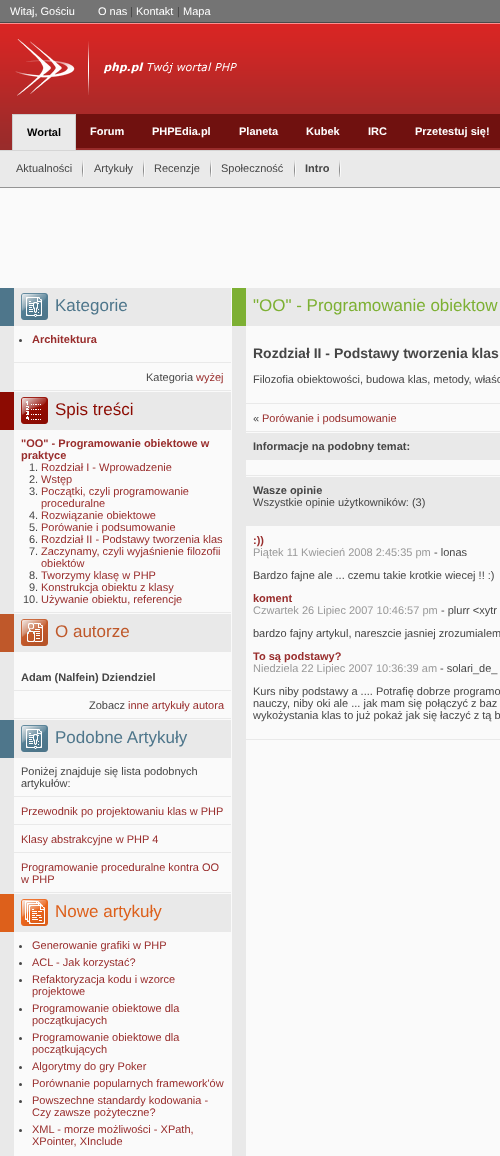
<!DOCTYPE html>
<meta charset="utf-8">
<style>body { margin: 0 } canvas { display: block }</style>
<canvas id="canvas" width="500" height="1156"></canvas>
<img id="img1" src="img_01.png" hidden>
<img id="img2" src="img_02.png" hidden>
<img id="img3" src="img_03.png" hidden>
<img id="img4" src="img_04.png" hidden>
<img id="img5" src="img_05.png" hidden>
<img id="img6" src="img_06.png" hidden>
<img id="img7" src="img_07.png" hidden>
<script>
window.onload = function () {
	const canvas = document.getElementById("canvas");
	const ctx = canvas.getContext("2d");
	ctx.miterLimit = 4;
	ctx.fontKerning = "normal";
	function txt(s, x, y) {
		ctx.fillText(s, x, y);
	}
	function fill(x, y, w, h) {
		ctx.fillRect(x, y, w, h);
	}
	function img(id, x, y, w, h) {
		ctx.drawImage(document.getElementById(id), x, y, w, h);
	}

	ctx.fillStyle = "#747474";
	fill(0, 0, 500, 1156);
	ctx.fillStyle = "#4A4A4A";
	fill(0, 22, 500, 1);
	img("img1", 0, 24, 500, 126);
	ctx.fillStyle = "#FF8E8E";
	fill(0, 23, 500, 1);
	img("img2", 15, 39, 222, 57);
	ctx.fillStyle = "#EAEAEA";
	fill(13, 115, 62, 35);
	ctx.fillStyle = "#CECECE";
	fill(12, 114, 64, 1);
	fill(75, 114, 1, 36);
	fill(12, 114, 1, 36);
	ctx.fillStyle = "#70110F";
	fill(76, 114, 424, 34);
	ctx.fillStyle = "#EAEAEA";
	fill(0, 151, 500, 36);
	ctx.fillStyle = "#D5D5D5";
	fill(0, 150, 500, 1);
	ctx.fillStyle = "#959595";
	fill(0, 187, 500, 1);
	img("img3", 82, 160, 2, 17);
	img("img3", 143, 160, 2, 17);
	img("img3", 210, 160, 2, 17);
	img("img3", 294, 160, 2, 17);
	img("img3", 339, 160, 2, 17);
	ctx.fillStyle = "#FAFAFA";
	fill(0, 188, 500, 968);
	ctx.fillStyle = "#E9E9E9";
	fill(0, 326, 14, 568);
	fill(14, 288, 217, 38);
	ctx.fillStyle = "#4E768B";
	fill(0, 288, 14, 38);
	img("img4", 21, 293, 27, 27);
	ctx.fillStyle = "#E9E9E9";
	fill(14, 362, 217, 1);
	ctx.fillStyle = "#464646";
	ctx.beginPath();
	ctx.arc(20.5, 340.5, 1.5, 0, Math.PI * 2);
	ctx.fill();
	ctx.fillStyle = "#E9E9E9";
	fill(14, 390, 217, 1);
	fill(14, 392, 217, 38);
	ctx.fillStyle = "#8C0B02";
	fill(0, 392, 14, 38);
	img("img5", 21, 397, 27, 27);
	ctx.fillStyle = "#E9E9E9";
	fill(14, 612, 217, 1);
	fill(14, 614, 217, 38);
	ctx.fillStyle = "#BF582A";
	fill(0, 614, 14, 38);
	img("img6", 21, 619, 27, 27);
	ctx.fillStyle = "#E9E9E9";
	fill(14, 690, 217, 1);
	fill(14, 718, 217, 1);
	fill(14, 720, 217, 38);
	ctx.fillStyle = "#4E768B";
	fill(0, 720, 14, 38);
	img("img4", 21, 725, 27, 27);
	ctx.fillStyle = "#E9E9E9";
	fill(14, 796, 217, 1);
	fill(14, 824, 217, 1);
	fill(14, 852, 217, 1);
	fill(14, 892, 217, 1);
	fill(14, 894, 217, 38);
	ctx.fillStyle = "#DD601B";
	fill(0, 894, 14, 38);
	img("img7", 21, 899, 27, 27);
	ctx.fillStyle = "#E9E9E9";
	fill(0, 932, 14, 224);
	ctx.fillStyle = "#464646";
	ctx.beginPath();
	ctx.arc(20.5, 946.5, 1.5, 0, Math.PI * 2);
	ctx.fill();
	ctx.beginPath();
	ctx.arc(20.5, 963.5, 1.5, 0, Math.PI * 2);
	ctx.fill();
	ctx.beginPath();
	ctx.arc(20.5, 980.5, 1.5, 0, Math.PI * 2);
	ctx.fill();
	ctx.beginPath();
	ctx.arc(20.5, 1009.5, 1.5, 0, Math.PI * 2);
	ctx.fill();
	ctx.beginPath();
	ctx.arc(20.5, 1038.5, 1.5, 0, Math.PI * 2);
	ctx.fill();
	ctx.beginPath();
	ctx.arc(20.5, 1067.5, 1.5, 0, Math.PI * 2);
	ctx.fill();
	ctx.beginPath();
	ctx.arc(20.5, 1084.5, 1.5, 0, Math.PI * 2);
	ctx.fill();
	ctx.beginPath();
	ctx.arc(20.5, 1101.5, 1.5, 0, Math.PI * 2);
	ctx.fill();
	ctx.beginPath();
	ctx.arc(20.5, 1130.5, 1.5, 0, Math.PI * 2);
	ctx.fill();
	ctx.fillStyle = "#E9E9E9";
	fill(232, 326, 14, 830);
	fill(246, 288, 254, 38);
	ctx.fillStyle = "#7DB033";
	fill(232, 288, 14, 38);
	ctx.fillStyle = "#E9E9E9";
	fill(246, 403, 254, 1);
	fill(246, 431, 254, 1);
	fill(246, 433, 254, 27);
	fill(246, 475, 254, 1);
	fill(246, 477, 254, 49);
	fill(246, 739, 254, 1);
	ctx.font = "11px Liberation Sans";
	ctx.fillStyle = "#FFFFFF";
	txt("Witaj, Gościu", 10, 15);
	txt("O nas", 98, 15);
	ctx.fillStyle = "#464646";
	txt("|", 130, 15);
	ctx.fillStyle = "#FFFFFF";
	txt("Kontakt", 136, 15);
	ctx.fillStyle = "#464646";
	txt("|", 177, 15);
	ctx.fillStyle = "#FFFFFF";
	txt("Mapa", 183, 15);
	ctx.font = "bold 11px Liberation Sans";
	ctx.fillStyle = "#000000";
	txt("Wortal", 27, 136);
	ctx.fillStyle = "#FFFFFF";
	txt("Forum", 90, 135);
	txt("PHPEdia.pl", 152, 135);
	txt("Planeta", 239, 135);
	txt("Kubek", 306, 135);
	txt("IRC", 368, 135);
	txt("Przetestuj się!", 415, 135);
	ctx.font = "11px Liberation Sans";
	ctx.fillStyle = "#464646";
	txt("Aktualności", 16, 172);
	txt("Artykuły", 94, 172);
	txt("Recenzje", 154, 172);
	txt("Społeczność", 221, 172);
	ctx.font = "bold 11px Liberation Sans";
	txt("Intro", 305, 172);
	ctx.font = "17px Liberation Sans";
	ctx.fillStyle = "#4E768B";
	txt("Kategorie", 55, 311);
	ctx.font = "bold 11px Liberation Sans";
	ctx.fillStyle = "#982C2B";
	txt("Architektura", 32, 343);
	ctx.font = "11px Liberation Sans";
	ctx.fillStyle = "#464646";
	txt("Kategoria", 146, 381);
	ctx.fillStyle = "#982C2B";
	txt("wyżej", 196, 381);
	ctx.font = "17px Liberation Sans";
	ctx.fillStyle = "#8C0B02";
	txt("Spis treści", 55, 415);
	ctx.font = "bold 11px Liberation Sans";
	ctx.fillStyle = "#982C2B";
	txt("\"OO\" - Programowanie obiektowe w", 21, 447);
	txt("praktyce", 21, 459);
	ctx.font = "11px Liberation Sans";
	ctx.fillStyle = "#464646";
	txt("1.", 29, 471);
	ctx.fillStyle = "#982C2B";
	txt("Rozdział I - Wprowadzenie", 41, 471);
	ctx.fillStyle = "#464646";
	txt("2.", 29, 483);
	ctx.fillStyle = "#982C2B";
	txt("Wstęp", 41, 483);
	ctx.fillStyle = "#464646";
	txt("3.", 29, 495);
	ctx.fillStyle = "#982C2B";
	txt("Początki, czyli programowanie", 41, 495);
	txt("proceduralne", 41, 507);
	ctx.fillStyle = "#464646";
	txt("4.", 29, 519);
	ctx.fillStyle = "#982C2B";
	txt("Rozwiązanie obiektowe", 41, 519);
	ctx.fillStyle = "#464646";
	txt("5.", 29, 531);
	ctx.fillStyle = "#982C2B";
	txt("Porówanie i podsumowanie", 41, 531);
	ctx.fillStyle = "#464646";
	txt("6.", 29, 543);
	ctx.fillStyle = "#982C2B";
	txt("Rozdział II - Podstawy tworzenia klas", 41, 543);
	ctx.fillStyle = "#464646";
	txt("7.", 29, 555);
	ctx.fillStyle = "#982C2B";
	txt("Zaczynamy, czyli wyjaśnienie filozofii", 41, 555);
	txt("obiektów", 41, 567);
	ctx.fillStyle = "#464646";
	txt("8.", 29, 579);
	ctx.fillStyle = "#982C2B";
	txt("Tworzymy klasę w PHP", 41, 579);
	ctx.fillStyle = "#464646";
	txt("9.", 29, 591);
	ctx.fillStyle = "#982C2B";
	txt("Konstrukcja obiektu z klasy", 41, 591);
	ctx.fillStyle = "#464646";
	txt("10.", 23, 603);
	ctx.fillStyle = "#982C2B";
	txt("Używanie obiektu, referencje", 41, 603);
	ctx.font = "17px Liberation Sans";
	ctx.fillStyle = "#BF582A";
	txt("O autorze", 55, 637);
	ctx.font = "bold 11px Liberation Sans";
	ctx.fillStyle = "#464646";
	txt("Adam (Nalfein) Dziendziel", 21, 681);
	ctx.font = "11px Liberation Sans";
	txt("Zobacz", 89, 709);
	ctx.fillStyle = "#982C2B";
	txt("inne artykuły autora", 128, 709);
	ctx.font = "17px Liberation Sans";
	ctx.fillStyle = "#4E768B";
	txt("Podobne Artykuły", 55, 743);
	ctx.font = "11px Liberation Sans";
	ctx.fillStyle = "#464646";
	txt("Poniżej znajduje się lista podobnych", 21, 775);
	txt("artykułów:", 21, 787);
	ctx.fillStyle = "#982C2B";
	txt("Przewodnik po projektowaniu klas w PHP", 21, 815);
	txt("Klasy abstrakcyjne w PHP 4", 21, 843);
	txt("Programowanie proceduralne kontra OO", 21, 871);
	txt("w PHP", 21, 883);
	ctx.font = "17px Liberation Sans";
	ctx.fillStyle = "#DD601B";
	txt("Nowe artykuły", 55, 917);
	ctx.font = "11px Liberation Sans";
	ctx.fillStyle = "#982C2B";
	txt("Generowanie grafiki w PHP", 32, 949);
	txt("ACL - Jak korzystać?", 32, 966);
	txt("Refaktoryzacja kodu i wzorce", 32, 983);
	txt("projektowe", 32, 995);
	txt("Programowanie obiektowe dla", 32, 1012);
	txt("początkujacych", 32, 1024);
	txt("Programowanie obiektowe dla", 32, 1041);
	txt("początkujących", 32, 1053);
	txt("Algorytmy do gry Poker", 32, 1070);
	txt("Porównanie popularnych framework'ów", 32, 1087);
	txt("Powszechne standardy kodowania -", 32, 1104);
	txt("Czy zawsze pożyteczne?", 32, 1116);
	txt("XML - morze możliwości - XPath,", 32, 1133);
	txt("XPointer, XInclude", 32, 1145);
	ctx.font = "17px Liberation Sans";
	ctx.fillStyle = "#7DB033";
	txt("\"OO\" - Programowanie obiektow", 253, 311);
	ctx.font = "bold 14px Liberation Sans";
	ctx.fillStyle = "#464646";
	txt("Rozdział II - Podstawy tworzenia klas", 253, 358);
	ctx.font = "11px Liberation Sans";
	txt("Filozofia obiektowości, budowa klas, metody, właśc", 253, 383);
	txt("«", 253, 422);
	ctx.fillStyle = "#982C2B";
	txt("Porówanie i podsumowanie", 262, 422);
	ctx.font = "bold 11px Liberation Sans";
	ctx.fillStyle = "#464646";
	txt("Informacje na podobny temat:", 253, 450);
	txt("Wasze opinie", 253, 494);
	ctx.font = "11px Liberation Sans";
	txt("Wszystkie opinie użytkowników: (3)", 253, 506);
	ctx.font = "bold 11px Liberation Sans";
	ctx.fillStyle = "#982C2B";
	txt(":))", 253, 544);
	ctx.font = "11px Liberation Sans";
	ctx.fillStyle = "#999999";
	txt("Piątek 11 Kwiecień 2008 2:45:35 pm", 253, 556);
	ctx.fillStyle = "#464646";
	txt("- lonas", 434, 556);
	txt("Bardzo fajne ale ... czemu takie krotkie wiecej !! :)", 253, 579);
	ctx.font = "bold 11px Liberation Sans";
	ctx.fillStyle = "#982C2B";
	txt("koment", 253, 602);
	ctx.font = "11px Liberation Sans";
	ctx.fillStyle = "#999999";
	txt("Czwartek 26 Lipiec 2007 10:46:57 pm", 253, 614);
	ctx.fillStyle = "#464646";
	txt("- plurr <xytr", 441, 614);
	txt("bardzo fajny artykul, nareszcie jasniej zrozumialem", 253, 637);
	ctx.font = "bold 11px Liberation Sans";
	ctx.fillStyle = "#982C2B";
	txt("To są podstawy?", 253, 660);
	ctx.font = "11px Liberation Sans";
	ctx.fillStyle = "#999999";
	txt("Niedziela 22 Lipiec 2007 10:36:39 am", 253, 672);
	ctx.fillStyle = "#464646";
	txt("- solari_de_", 440, 672);
	txt("Kurs niby podstawy a .... Potrafię dobrze programo", 253, 695);
	txt("nauczy, niby oki ale ... jak mam się połączyć z baz", 253, 707);
	txt("wykożystania klas to już pokaż jak się łaczyć z tą b", 253, 719);
};
</script>
